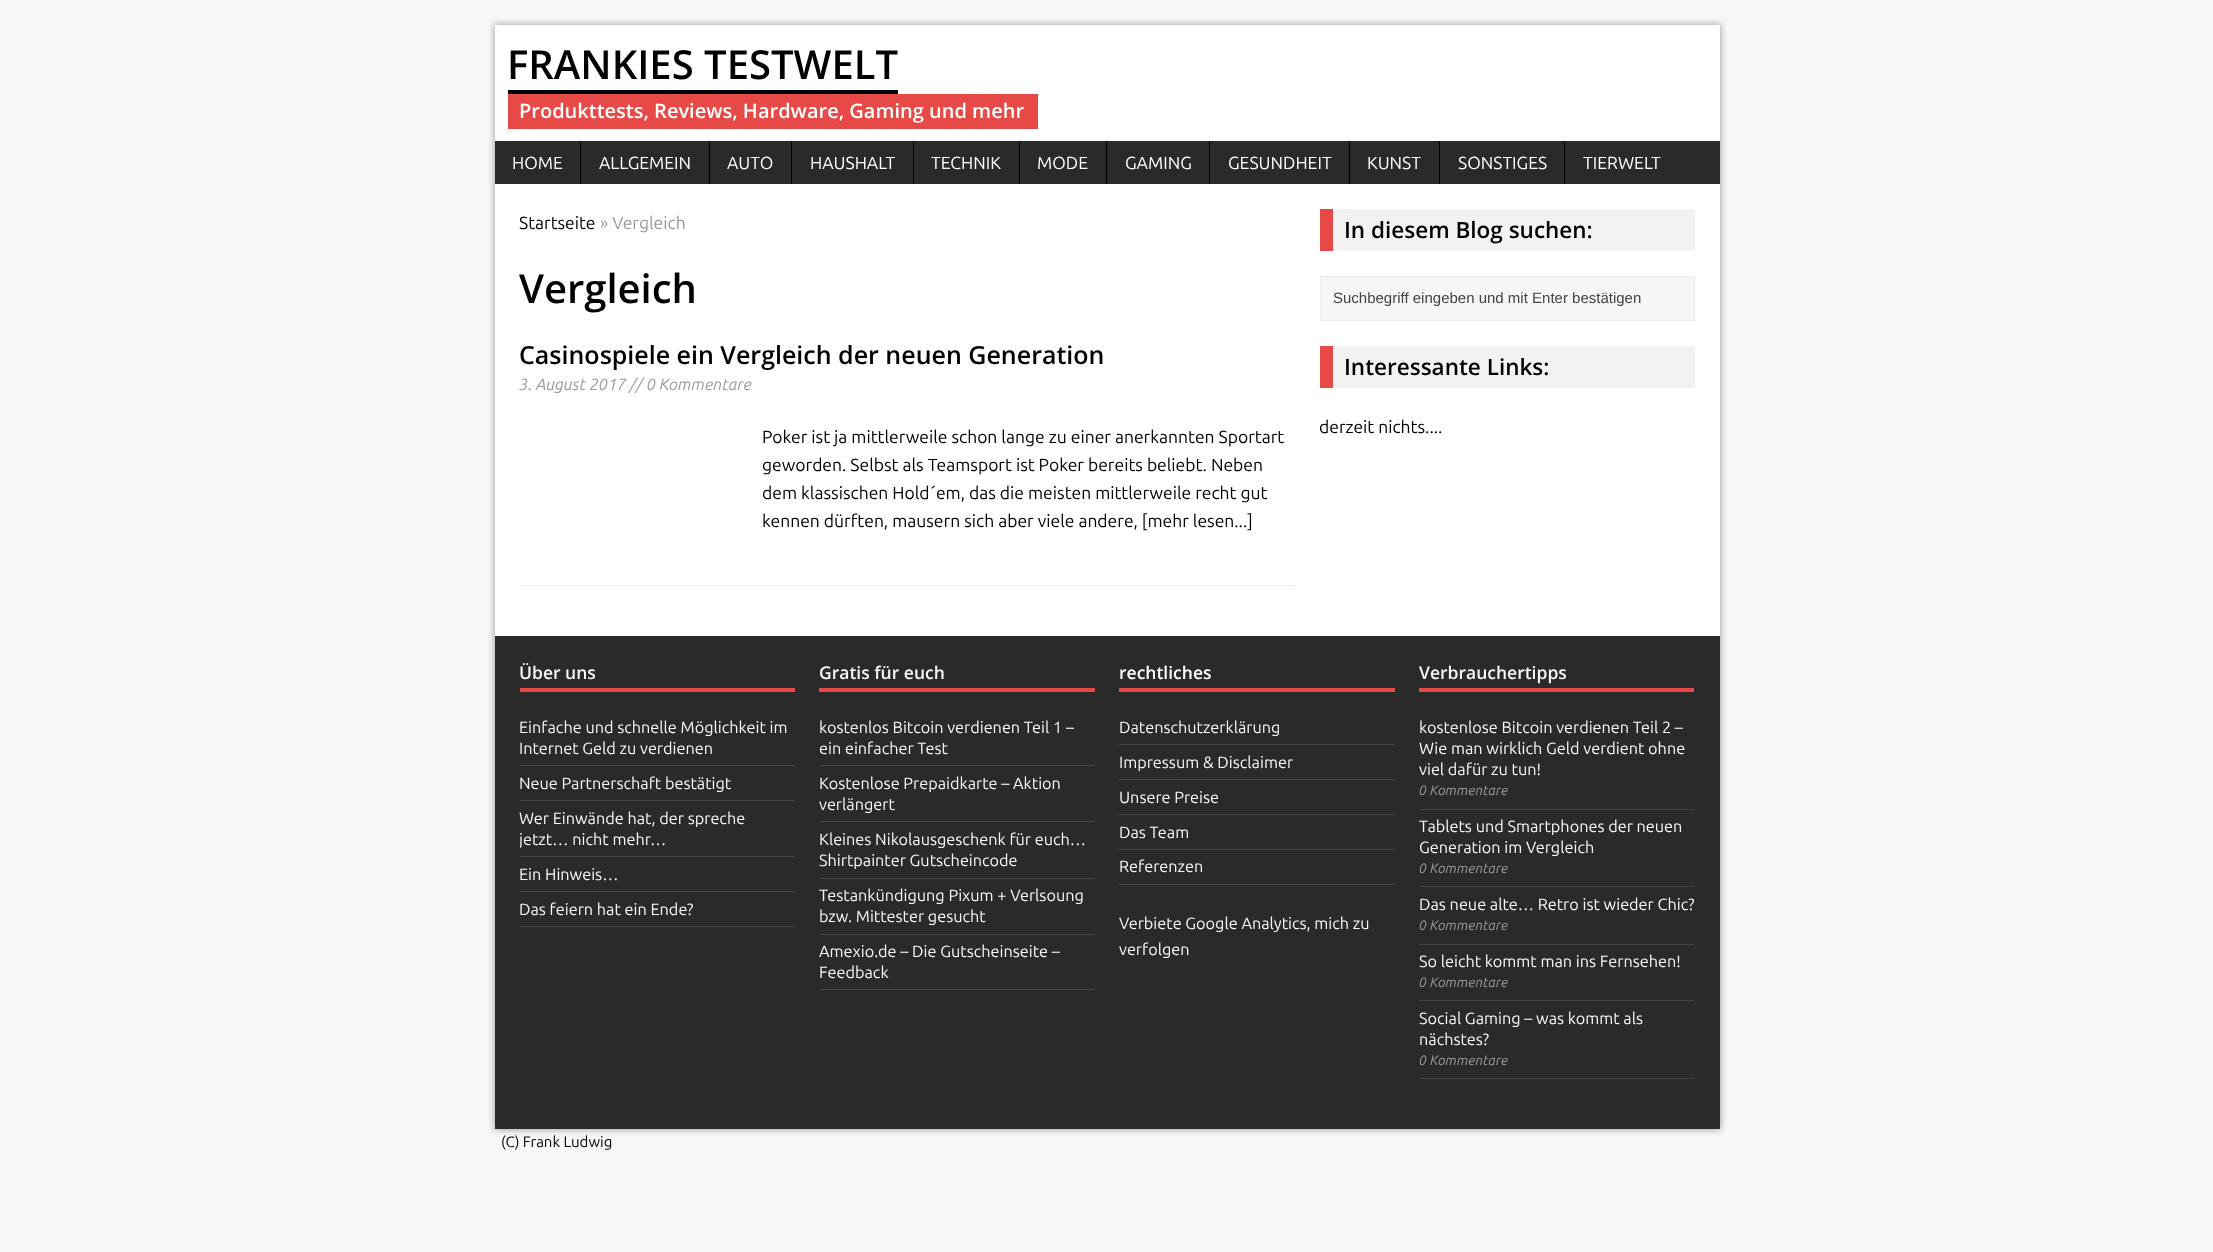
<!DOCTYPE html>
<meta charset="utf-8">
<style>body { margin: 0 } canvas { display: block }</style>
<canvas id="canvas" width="2213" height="1252"></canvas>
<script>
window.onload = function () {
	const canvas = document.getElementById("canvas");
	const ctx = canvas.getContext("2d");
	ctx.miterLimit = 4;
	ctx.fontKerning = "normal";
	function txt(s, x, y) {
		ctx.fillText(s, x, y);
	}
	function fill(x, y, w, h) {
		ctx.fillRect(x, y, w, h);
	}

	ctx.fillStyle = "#F7F7F7";
	fill(0, 0, 2213, 1252);
	ctx.fillStyle = "#A8A8A8";
	ctx.filter = "blur(3px)";
	ctx.beginPath();
	ctx.rect(494, 24, 1227, 1106);
	ctx.fill();
	ctx.filter = "none";
	ctx.fillStyle = "#FFFFFF";
	fill(495, 25, 1225, 116);
	ctx.fillStyle = "#000000";
	fill(508, 90, 390, 4);
	ctx.fillStyle = "#E64946";
	fill(508, 94, 530, 35);
	ctx.fillStyle = "#2A2A2A";
	fill(495, 141, 1225, 43);
	ctx.fillStyle = "#000000";
	fill(580, 141, 1, 43);
	fill(709, 141, 1, 43);
	fill(791, 141, 1, 43);
	fill(913, 141, 1, 43);
	fill(1019, 141, 1, 43);
	fill(1106, 141, 1, 43);
	fill(1209, 141, 1, 43);
	fill(1349, 141, 1, 43);
	fill(1439, 141, 1, 43);
	fill(1564, 141, 1, 43);
	ctx.fillStyle = "#FFFFFF";
	fill(495, 184, 1225, 452);
	ctx.fillStyle = "#EBEBEB";
	fill(520, 585, 775, 1);
	ctx.fillStyle = "#F2F2F2";
	fill(1333, 209, 362, 42);
	ctx.fillStyle = "#E64946";
	fill(1320, 209, 13, 42);
	ctx.fillStyle = "#F6F6F6";
	ctx.beginPath();
	ctx.rect(1320.5, 276.5, 374, 44);
	ctx.fill();
	ctx.strokeStyle = "#EBEBEB";
	ctx.stroke();
	ctx.fillStyle = "#F2F2F2";
	fill(1333, 346, 362, 42);
	ctx.fillStyle = "#E64946";
	fill(1320, 346, 13, 42);
	ctx.fillStyle = "#2A2A2A";
	fill(495, 636, 1225, 493);
	ctx.fillStyle = "#E64946";
	fill(520, 688, 275, 4);
	ctx.fillStyle = "#454545";
	fill(520, 765, 275, 1);
	fill(520, 800, 275, 1);
	fill(520, 856, 275, 1);
	fill(520, 891, 275, 1);
	fill(520, 926, 275, 1);
	ctx.fillStyle = "#E64946";
	fill(819, 688, 276, 4);
	ctx.fillStyle = "#454545";
	fill(819, 765, 276, 1);
	fill(819, 821, 276, 1);
	fill(819, 878, 276, 1);
	fill(819, 934, 276, 1);
	fill(819, 989, 276, 1);
	ctx.fillStyle = "#E64946";
	fill(1119, 688, 276, 4);
	ctx.fillStyle = "#454545";
	fill(1119, 744, 276, 1);
	fill(1119, 779, 276, 1);
	fill(1119, 814, 276, 1);
	fill(1119, 849, 276, 1);
	fill(1119, 884, 276, 1);
	ctx.fillStyle = "#E64946";
	fill(1419, 688, 275, 4);
	ctx.fillStyle = "#454545";
	fill(1419, 809, 275, 1);
	fill(1419, 886, 275, 1);
	fill(1419, 944, 275, 1);
	fill(1419, 1000, 275, 1);
	fill(1419, 1078, 275, 1);
	ctx.font = "600 40px Open Sans";
	ctx.fillStyle = "#000000";
	txt("FRANKIES TESTWELT", 507, 79);
	ctx.font = "600 20px Open Sans";
	ctx.fillStyle = "#FFFFFF";
	txt("Produkttests, Reviews, Hardware, Gaming und mehr", 519, 118);
	ctx.font = "17.5px Ubuntu";
	txt("HOME", 512, 169);
	txt("ALLGEMEIN", 599, 169);
	txt("AUTO", 727, 169);
	txt("HAUSHALT", 810, 169);
	txt("TECHNIK", 931, 169);
	txt("MODE", 1037, 169);
	txt("GAMING", 1125, 169);
	txt("GESUNDHEIT", 1228, 169);
	txt("KUNST", 1367, 169);
	txt("SONSTIGES", 1458, 169);
	txt("TIERWELT", 1583, 169);
	ctx.fillStyle = "#000000";
	txt("Startseite", 519, 229);
	ctx.fillStyle = "#9A9B97";
	txt("» Vergleich", 600, 229);
	ctx.font = "600 40px Open Sans";
	ctx.fillStyle = "#000000";
	txt("Vergleich", 519, 303);
	ctx.font = "600 25px Open Sans";
	txt("Casinospiele ein Vergleich der neuen Generation", 519, 364);
	ctx.font = "italic 16.25px Ubuntu";
	ctx.fillStyle = "#9A9B97";
	txt("3. August 2017 // 0 Kommentare", 519, 390);
	ctx.font = "17.5px Ubuntu";
	ctx.fillStyle = "#000000";
	txt("Poker ist ja mittlerweile schon lange zu einer anerkannten Sportart", 762, 443);
	txt("geworden. Selbst als Teamsport ist Poker bereits beliebt. Neben", 762, 471);
	txt("dem klassischen Hold´em, das die meisten mittlerweile recht gut", 762, 499);
	txt("kennen dürften, mausern sich aber viele andere, [mehr lesen...]", 762, 527);
	ctx.font = "600 22.5px Open Sans";
	txt("In diesem Blog suchen:", 1344, 238);
	ctx.font = "15px Liberation Sans";
	ctx.fillStyle = "#444444";
	txt("Suchbegriff eingeben und mit Enter bestätigen", 1333, 303);
	ctx.font = "600 22.5px Open Sans";
	ctx.fillStyle = "#000000";
	txt("Interessante Links:", 1344, 375);
	ctx.font = "17.5px Ubuntu";
	txt("derzeit nichts....", 1319, 433);
	ctx.font = "600 17.5px Open Sans";
	ctx.fillStyle = "#F7F7F7";
	txt("Über uns", 519, 679);
	ctx.font = "16.25px Ubuntu";
	txt("Einfache und schnelle Möglichkeit im", 519, 733);
	txt("Internet Geld zu verdienen", 519, 754);
	txt("Neue Partnerschaft bestätigt", 519, 789);
	txt("Wer Einwände hat, der spreche", 519, 824);
	ctx.save();
	ctx.beginPath();
	ctx.rect(520, 661, 275, 267);
	ctx.clip();
	txt("jetzt… nicht mehr…", 519, 845);
	ctx.restore();
	txt("Ein Hinweis…", 519, 880);
	txt("Das feiern hat ein Ende?", 519, 915);
	ctx.font = "600 17.5px Open Sans";
	txt("Gratis für euch", 819, 679);
	ctx.font = "16.25px Ubuntu";
	txt("kostenlos Bitcoin verdienen Teil 1 –", 819, 733);
	txt("ein einfacher Test", 819, 754);
	txt("Kostenlose Prepaidkarte – Aktion", 819, 789);
	txt("verlängert", 819, 810);
	txt("Kleines Nikolausgeschenk für euch…", 819, 845);
	txt("Shirtpainter Gutscheincode", 819, 866);
	txt("Testankündigung Pixum + Verlsoung", 819, 901);
	txt("bzw. Mittester gesucht", 819, 922);
	txt("Amexio.de – Die Gutscheinseite –", 819, 957);
	txt("Feedback", 819, 978);
	ctx.font = "600 17.5px Open Sans";
	ctx.fillStyle = "#FFFFFF";
	txt("rechtliches", 1119, 679);
	ctx.font = "16.25px Ubuntu";
	ctx.fillStyle = "#F7F7F7";
	txt("Datenschutzerklärung", 1119, 733);
	txt("Impressum & Disclaimer", 1119, 768);
	txt("Unsere Preise", 1119, 803);
	txt("Das Team", 1119, 838);
	txt("Referenzen", 1119, 872);
	txt("Verbiete Google Analytics, mich zu", 1119, 929);
	txt("verfolgen", 1119, 955);
	ctx.font = "600 17.5px Open Sans";
	txt("Verbrauchertipps", 1419, 679);
	ctx.font = "16.25px Ubuntu";
	txt("kostenlose Bitcoin verdienen Teil 2 –", 1419, 733);
	txt("Wie man wirklich Geld verdient ohne", 1419, 754);
	txt("viel dafür zu tun!", 1419, 775);
	ctx.font = "italic 13.75px Ubuntu";
	ctx.fillStyle = "#9A9B97";
	txt("0 Kommentare", 1419, 795);
	ctx.font = "16.25px Ubuntu";
	ctx.fillStyle = "#F7F7F7";
	txt("Tablets und Smartphones der neuen", 1419, 832);
	txt("Generation im Vergleich", 1419, 853);
	ctx.font = "italic 13.75px Ubuntu";
	ctx.fillStyle = "#9A9B97";
	txt("0 Kommentare", 1419, 873);
	ctx.font = "16.25px Ubuntu";
	ctx.fillStyle = "#F7F7F7";
	txt("Das neue alte… Retro ist wieder Chic?", 1419, 910);
	ctx.font = "italic 13.75px Ubuntu";
	ctx.fillStyle = "#9A9B97";
	txt("0 Kommentare", 1419, 930);
	ctx.font = "16.25px Ubuntu";
	ctx.fillStyle = "#F7F7F7";
	txt("So leicht kommt man ins Fernsehen!", 1419, 967);
	ctx.font = "italic 13.75px Ubuntu";
	ctx.fillStyle = "#9A9B97";
	txt("0 Kommentare", 1419, 987);
	ctx.font = "16.25px Ubuntu";
	ctx.fillStyle = "#F7F7F7";
	txt("Social Gaming – was kommt als", 1419, 1024);
	txt("nächstes?", 1419, 1045);
	ctx.font = "italic 13.75px Ubuntu";
	ctx.fillStyle = "#9A9B97";
	txt("0 Kommentare", 1419, 1065);
	ctx.font = "15px Ubuntu";
	ctx.fillStyle = "#000000";
	txt("(C) Frank Ludwig", 501, 1147);
};
</script>
